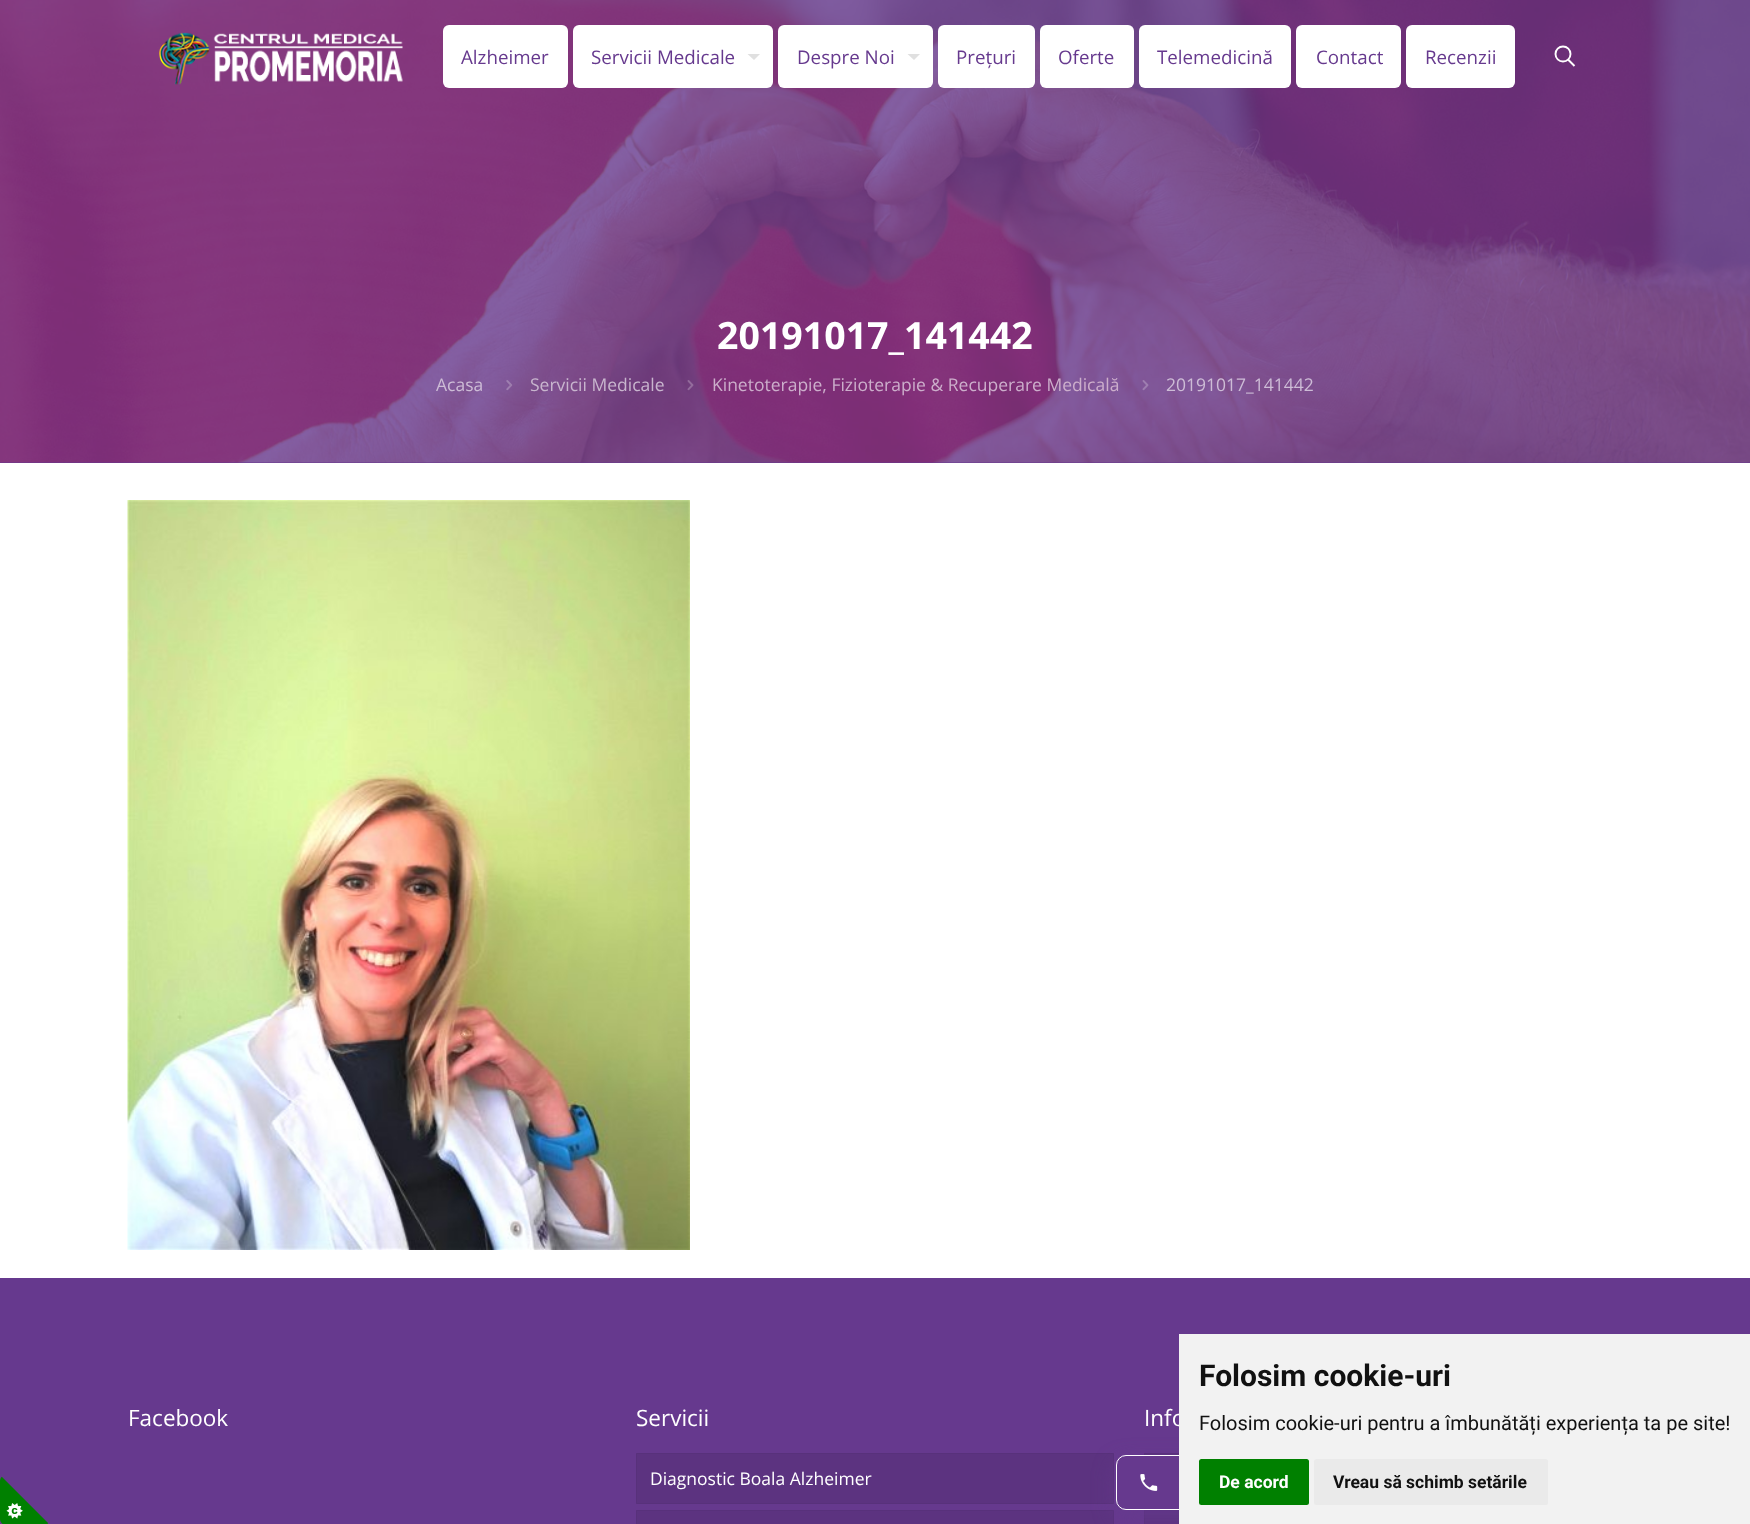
<!DOCTYPE html>
<meta charset="utf-8">
<style>body { margin: 0 } canvas { display: block }</style>
<canvas id="canvas" width="1750" height="1524"></canvas>
<img id="img1" src="img_01.png" hidden>
<img id="img2" src="img_02.png" hidden>
<img id="img3" src="img_03.png" hidden>
<img id="img4" src="img_04.png" hidden>
<img id="img5" src="img_05.png" hidden>
<img id="img6" src="img_06.png" hidden>
<img id="img7" src="img_07.png" hidden>
<img id="img8" src="img_08.png" hidden>
<script>
window.onload = function () {
	const canvas = document.getElementById("canvas");
	const ctx = canvas.getContext("2d");
	ctx.miterLimit = 4;
	ctx.fontKerning = "normal";
	function txt(s, x, y) {
		ctx.fillText(s, x, y);
	}
	function fill(x, y, w, h) {
		ctx.fillRect(x, y, w, h);
	}
	function round(x, y, w, h, r) {
		ctx.beginPath();
		ctx.roundRect(x, y, w, h, r);
		ctx.fill();
	}
	function img(id, x, y, w, h) {
		ctx.drawImage(document.getElementById(id), x, y, w, h);
	}

	ctx.fillStyle = "#FFFFFF";
	fill(0, 0, 1750, 1524);
	ctx.fillStyle = "#66398E";
	fill(0, 462, 1750, 1);
	img("img1", 0, 0, 1750, 463);
	img("img2", 159, 32, 244, 53);
	ctx.fillStyle = "#FFFFFF";
	round(443, 25, 125, 63, 6);
	round(573, 25, 200, 63, 6);
	ctx.fillStyle = "#E0E0E0";
	ctx.beginPath();
	ctx.moveTo(747.5, 54);
	ctx.lineTo(760, 54);
	ctx.lineTo(754, 60);
	ctx.closePath();
	ctx.fill();
	ctx.fillStyle = "#FFFFFF";
	round(778, 25, 155, 63, 6);
	ctx.fillStyle = "#E0E0E0";
	ctx.beginPath();
	ctx.moveTo(907.5, 54);
	ctx.lineTo(920, 54);
	ctx.lineTo(914, 60);
	ctx.closePath();
	ctx.fill();
	ctx.fillStyle = "#FFFFFF";
	round(938, 25, 97, 63, 6);
	round(1040, 25, 94, 63, 6);
	round(1139, 25, 152, 63, 6);
	round(1296, 25, 105, 63, 6);
	round(1406, 25, 109, 63, 6);
	ctx.beginPath();
	ctx.arc(1563, 54, 7.5, 0, Math.PI * 2);
	ctx.strokeStyle = "#FFFFFF";
	ctx.lineWidth = 1.9;
	ctx.stroke();
	ctx.beginPath();
	ctx.moveTo(1568, 59.5);
	ctx.lineTo(1574.5, 66);
	ctx.stroke();
	img("img3", 506, 380, 7, 11);
	img("img4", 687, 380, 7, 11);
	img("img5", 1142, 380, 7, 11);
	img("img6", 127, 500, 563, 750);
	ctx.fillStyle = "#66398E";
	fill(0, 1278, 1750, 246);
	ctx.fillStyle = "#5C3380";
	ctx.beginPath();
	ctx.rect(636.5, 1453.5, 477, 50);
	ctx.fill();
	ctx.strokeStyle = "#58317B";
	ctx.lineWidth = 1;
	ctx.stroke();
	ctx.beginPath();
	ctx.rect(636.5, 1510.5, 477, 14);
	ctx.fill();
	ctx.stroke();
	fill(1145, 1454, 34, 1);
	ctx.strokeRect(1144.5, 1453.5, 478, 50);
	fill(1145, 1511, 34, 13);
	ctx.strokeRect(1144.5, 1510.5, 478, 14);
	img("img7", 0, 1476, 49, 48);
	ctx.fillStyle = "rgba(102, 57, 142, 0.66)";
	ctx.filter = "blur(11px)";
	ctx.beginPath();
	ctx.roundRect(1116, 1463, 192, 55, 10);
	ctx.fill();
	ctx.filter = "none";
	ctx.fillStyle = "#66398E";
	ctx.beginPath();
	ctx.roundRect(1116.5, 1455.5, 191, 54, 9.5);
	ctx.fill();
	ctx.strokeStyle = "#FFFFFF";
	ctx.stroke();
	img("img8", 1140, 1474, 18, 17);
	ctx.font = "18.75px Open Sans";
	txt("Alzheimer", 461, 64);
	txt("Servicii Medicale", 591, 64);
	txt("Despre Noi", 797, 64);
	txt("Prețuri", 956, 64);
	txt("Oferte", 1058, 64);
	txt("Telemedicină", 1157, 64);
	txt("Contact", 1316, 64);
	txt("Recenzii", 1425, 64);
	ctx.font = "bold 37.5px Open Sans";
	ctx.fillStyle = "#FFFFFF";
	txt("20191017_141442", 717, 349);
	ctx.font = "17.5px Open Sans";
	ctx.fillStyle = "#CDBCD6";
	txt("Acasa", 436, 391);
	ctx.fillStyle = "#C8B5CE";
	txt("Servicii Medicale", 530, 391);
	ctx.fillStyle = "#CCAECB";
	txt("Kinetoterapie, Fizioterapie & Recuperare Medicală", 712, 391);
	ctx.fillStyle = "#CDBCD6";
	txt("20191017_141442", 1166, 391);
	ctx.font = "22.5px Open Sans";
	ctx.fillStyle = "#FFFFFF";
	txt("Facebook", 128, 1426);
	txt("Servicii", 636, 1426);
	ctx.font = "17.5px Open Sans";
	txt("Diagnostic Boala Alzheimer", 650, 1485);
	ctx.font = "22.5px Open Sans";
	txt("Info", 1144, 1426);
	ctx.fillStyle = "#F2F2F2";
	fill(1179, 1334, 571, 190);
	ctx.font = "bold 30px Roboto";
	ctx.fillStyle = "#111111";
	txt("Folosim cookie-uri", 1199, 1386);
	ctx.font = "20px Roboto";
	txt("Folosim cookie-uri pentru a îmbunătăți experiența ta pe site!", 1199, 1430);
	ctx.fillStyle = "#008000";
	round(1199, 1459, 110, 46, 2.5);
	ctx.font = "bold 17.5px Roboto";
	ctx.fillStyle = "#FFFFFF";
	txt("De acord", 1219, 1488);
	ctx.fillStyle = "#EAEAEA";
	round(1314, 1459, 234, 46, 2.5);
	ctx.fillStyle = "#111111";
	txt("Vreau să schimb setările", 1333, 1488);
};
</script>
